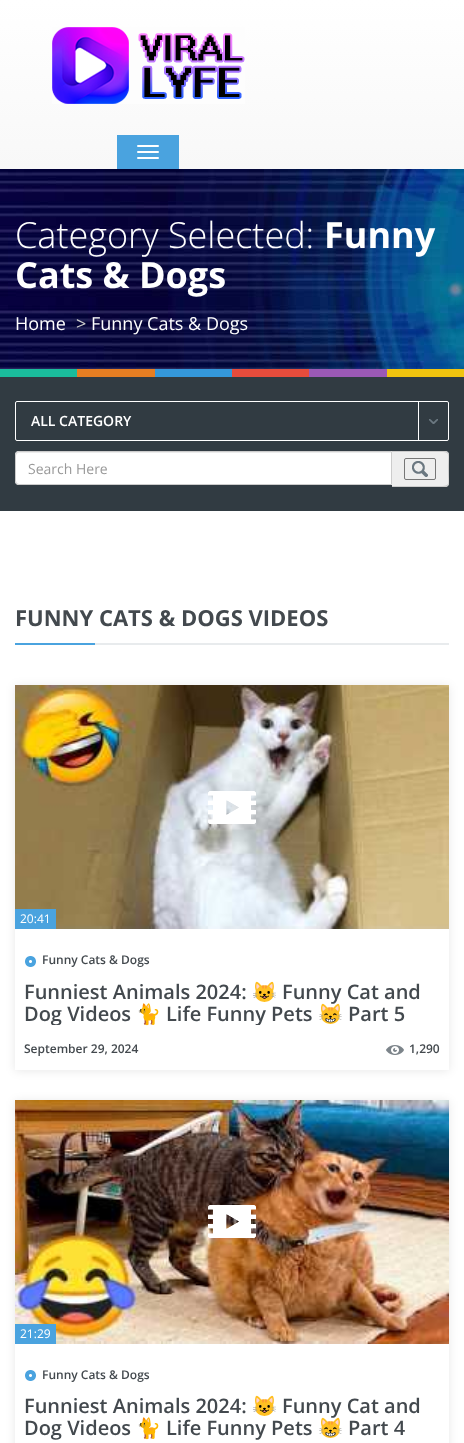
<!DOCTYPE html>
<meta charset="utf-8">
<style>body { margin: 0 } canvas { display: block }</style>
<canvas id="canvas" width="464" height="1443"></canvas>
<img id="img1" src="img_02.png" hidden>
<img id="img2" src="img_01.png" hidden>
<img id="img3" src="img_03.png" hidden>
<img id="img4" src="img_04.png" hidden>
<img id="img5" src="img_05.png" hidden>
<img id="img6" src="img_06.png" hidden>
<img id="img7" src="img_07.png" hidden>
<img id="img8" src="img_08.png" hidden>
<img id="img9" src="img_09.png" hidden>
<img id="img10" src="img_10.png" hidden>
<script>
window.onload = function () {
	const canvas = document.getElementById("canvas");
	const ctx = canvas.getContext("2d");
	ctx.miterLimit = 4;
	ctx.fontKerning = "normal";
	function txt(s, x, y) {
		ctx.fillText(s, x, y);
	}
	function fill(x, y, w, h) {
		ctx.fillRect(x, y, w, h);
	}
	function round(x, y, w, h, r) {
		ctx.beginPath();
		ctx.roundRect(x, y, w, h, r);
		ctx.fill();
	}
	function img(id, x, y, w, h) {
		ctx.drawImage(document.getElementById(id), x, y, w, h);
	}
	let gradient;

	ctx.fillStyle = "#FFFFFF";
	fill(0, 0, 464, 1443);
	img("img1", 0, 169, 464, 200);
	ctx.fillStyle = "rgba(0, 0, 0, 0.07)";
	ctx.filter = "blur(2.5px)";
	ctx.beginPath();
	ctx.rect(0, 1, 464, 169);
	ctx.fill();
	ctx.filter = "none";
	gradient = ctx.createLinearGradient(232, 0, 232, 169);
	gradient.addColorStop(0, "#FFFFFF");
	gradient.addColorStop(1, "#F8F8F8");
	ctx.fillStyle = gradient;
	fill(0, 0, 464, 169);
	img("img2", 52, 27, 193, 77);
	ctx.fillStyle = "#4AA3DF";
	fill(117, 135, 62, 34);
	ctx.fillStyle = "#FFFFFF";
	round(137, 145, 22, 2, 1);
	round(137, 151, 22, 2, 1);
	round(137, 157, 22, 2, 1);
	ctx.fillStyle = "#1ABC9C";
	fill(0, 369, 77, 8);
	ctx.fillStyle = "#E67E22";
	fill(77, 369, 78, 8);
	ctx.fillStyle = "#3498DB";
	fill(155, 369, 77, 8);
	ctx.fillStyle = "#E74C3C";
	fill(232, 369, 77, 8);
	ctx.fillStyle = "#9B59B6";
	fill(309, 369, 78, 8);
	ctx.fillStyle = "#F1C40F";
	fill(387, 369, 77, 8);
	ctx.fillStyle = "#313B42";
	fill(0, 377, 464, 134);
	ctx.beginPath();
	ctx.roundRect(15.5, 401.5, 433, 39, 1.5);
	ctx.strokeStyle = "#FFFFFF";
	ctx.stroke();
	img("img3", 429, 419, 9, 5);
	ctx.fillStyle = "#FFFFFF";
	fill(418, 402, 1, 38);
	ctx.beginPath();
	ctx.roundRect(15, 451, 377, 34, [4, 0, 0, 4]);
	ctx.fill();
	ctx.fillStyle = "#ECECEC";
	ctx.beginPath();
	ctx.moveTo(19, 453);
	ctx.lineTo(391, 453);
	ctx.lineTo(391, 452);
	ctx.lineTo(19, 452);
	ctx.bezierCurveTo(17, 452, 16, 453, 16, 455);
	ctx.lineTo(16, 456);
	ctx.bezierCurveTo(16, 454, 17, 453, 19, 453);
	ctx.closePath();
	ctx.fill();
	ctx.beginPath();
	ctx.roundRect(15.5, 451.5, 376, 33, [3.5, 0, 0, 3.5]);
	ctx.strokeStyle = "#CCCCCC";
	ctx.stroke();
	ctx.fillStyle = "#EEEEEE";
	ctx.beginPath();
	ctx.roundRect(392, 451, 57, 36, [0, 4, 4, 0]);
	ctx.fill();
	ctx.fillStyle = "#CCCCCC";
	ctx.beginPath();
	ctx.moveTo(392, 451);
	ctx.lineTo(445, 451);
	ctx.bezierCurveTo(447, 451, 449, 453, 449, 455);
	ctx.lineTo(449, 483);
	ctx.bezierCurveTo(449, 485, 447, 487, 445, 487);
	ctx.lineTo(392, 487);
	ctx.closePath();
	ctx.moveTo(392, 452);
	ctx.lineTo(436, 452);
	ctx.bezierCurveTo(452, 452, 448, 452, 448, 469);
	ctx.bezierCurveTo(448, 486, 452, 486, 436, 486);
	ctx.lineTo(392, 486);
	ctx.closePath();
	ctx.fill("evenodd");
	ctx.beginPath();
	ctx.roundRect(404.5, 458.5, 31, 21, 1.5);
	ctx.strokeStyle = "#767676";
	ctx.stroke();
	img("img4", 412, 461, 16, 16);
	ctx.fillStyle = "#E8EBED";
	fill(95, 643, 354, 2);
	ctx.fillStyle = "#4AA3DF";
	fill(15, 643, 80, 2);
	ctx.save();
	ctx.beginPath();
	ctx.moveTo(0, 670);
	ctx.lineTo(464, 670);
	ctx.lineTo(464, 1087);
	ctx.lineTo(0, 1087);
	ctx.closePath();
	ctx.moveTo(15, 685);
	ctx.lineTo(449, 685);
	ctx.lineTo(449, 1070);
	ctx.lineTo(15, 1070);
	ctx.closePath();
	ctx.clip("evenodd");
	ctx.fillStyle = "rgba(0, 0, 0, 0.09)";
	ctx.filter = "blur(5px)";
	ctx.beginPath();
	ctx.rect(15, 686, 434, 385);
	ctx.fill();
	ctx.filter = "none";
	ctx.restore();
	img("img5", 15, 685, 434, 244);
	img("img6", 208, 791, 48, 33);
	fill(15, 909, 41, 20);
	img("img7", 25, 956, 11, 11);
	img("img8", 386, 1045, 18, 10);
	ctx.save();
	ctx.beginPath();
	ctx.moveTo(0, 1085);
	ctx.lineTo(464, 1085);
	ctx.lineTo(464, 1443);
	ctx.lineTo(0, 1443);
	ctx.closePath();
	ctx.moveTo(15, 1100);
	ctx.lineTo(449, 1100);
	ctx.lineTo(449, 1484);
	ctx.lineTo(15, 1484);
	ctx.closePath();
	ctx.clip("evenodd");
	ctx.fillStyle = "rgba(0, 0, 0, 0.09)";
	ctx.filter = "blur(5px)";
	ctx.beginPath();
	ctx.rect(15, 1101, 434, 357);
	ctx.fill();
	ctx.filter = "none";
	ctx.restore();
	img("img9", 15, 1100, 434, 244);
	img("img10", 208, 1205, 48, 33);
	fill(15, 1324, 41, 20);
	img("img7", 25, 1370, 11, 11);
	ctx.font = "300 36px Open Sans";
	ctx.fillStyle = "#FFFFFF";
	txt("Category Selected:", 15, 248);
	ctx.font = "bold 36px Open Sans";
	txt("Funny", 324, 248);
	txt("Cats & Dogs", 15, 288);
	ctx.font = "18px Open Sans";
	txt("Home", 15, 330);
	ctx.fillStyle = "#CCCCCC";
	txt(">", 76, 330);
	ctx.fillStyle = "#FFFFFF";
	txt("Funny Cats & Dogs", 91, 330);
	ctx.font = "600 14px Open Sans";
	txt("ALL CATEGORY", 31, 426);
	ctx.font = "14px Open Sans";
	ctx.fillStyle = "#999999";
	txt("Search Here", 28, 474);
	ctx.font = "bold 22px Open Sans";
	ctx.fillStyle = "#43494E";
	txt("FUNNY CATS & DOGS VIDEOS", 15, 626);
	ctx.font = "12px Open Sans";
	ctx.fillStyle = "#FFFFFF";
	txt("20:41", 20, 923);
	ctx.font = "600 12px Open Sans";
	ctx.fillStyle = "#43494E";
	txt("Funny Cats & Dogs", 42, 964);
	ctx.font = "600 20px Open Sans";
	txt("Funniest Animals 2024:", 24, 999);
	ctx.font = "bold 20px Noto Color Emoji";
	txt("😺", 252, 999);
	ctx.font = "600 20px Open Sans";
	txt("Funny Cat and", 282, 999);
	ctx.save();
	ctx.beginPath();
	ctx.rect(24, 981, 416, 44);
	ctx.clip();
	txt("Dog Videos", 24, 1021);
	ctx.restore();
	ctx.font = "bold 20px Noto Color Emoji";
	txt("🐈", 136, 1021);
	ctx.save();
	ctx.beginPath();
	ctx.rect(24, 981, 416, 44);
	ctx.clip();
	ctx.font = "600 20px Open Sans";
	txt("Life Funny Pets", 166, 1021);
	ctx.restore();
	txt("😸", 318, 1021);
	ctx.font = "600 20px Open Sans";
	txt("Part 5", 348, 1021);
	ctx.font = "600 12px Open Sans";
	txt("September 29, 2024", 24, 1053);
	txt("1,290", 409, 1053);
	ctx.font = "12px Open Sans";
	ctx.fillStyle = "#FFFFFF";
	txt("21:29", 20, 1338);
	ctx.font = "600 12px Open Sans";
	ctx.fillStyle = "#43494E";
	txt("Funny Cats & Dogs", 42, 1379);
	ctx.font = "600 20px Open Sans";
	txt("Funniest Animals 2024:", 24, 1413);
	ctx.font = "bold 20px Noto Color Emoji";
	txt("😺", 252, 1413);
	ctx.font = "600 20px Open Sans";
	txt("Funny Cat and", 282, 1413);
	txt("Dog Videos", 24, 1435);
	ctx.font = "bold 20px Noto Color Emoji";
	txt("🐈", 136, 1435);
	ctx.font = "600 20px Open Sans";
	txt("Life Funny Pets", 166, 1435);
	ctx.font = "bold 20px Noto Color Emoji";
	txt("😸", 318, 1435);
	ctx.font = "600 20px Open Sans";
	txt("Part 4", 348, 1435);
};
</script>
